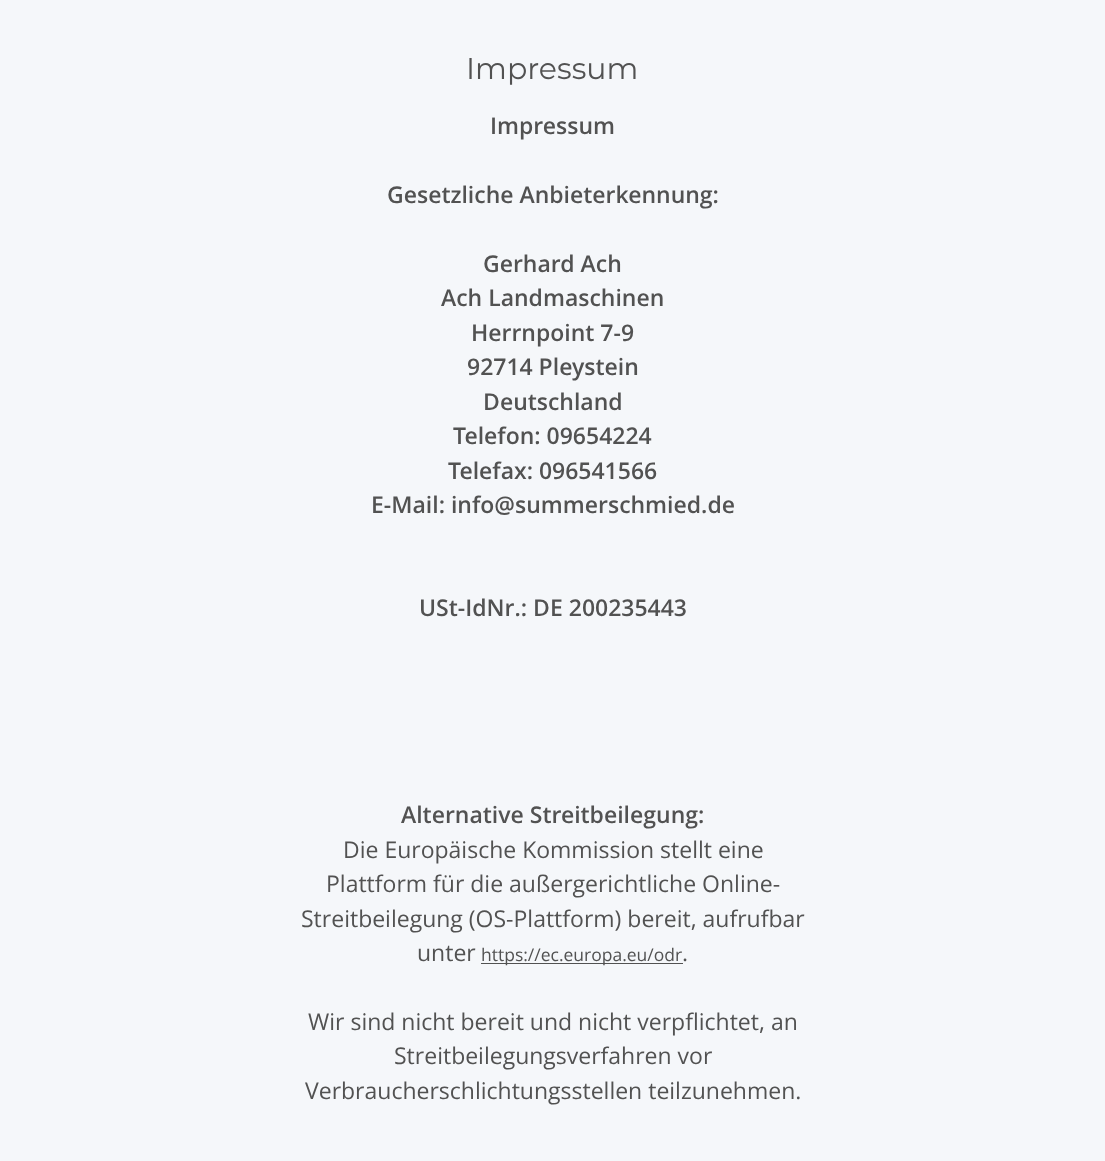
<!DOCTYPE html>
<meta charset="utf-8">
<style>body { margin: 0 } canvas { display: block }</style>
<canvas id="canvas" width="1105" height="1161"></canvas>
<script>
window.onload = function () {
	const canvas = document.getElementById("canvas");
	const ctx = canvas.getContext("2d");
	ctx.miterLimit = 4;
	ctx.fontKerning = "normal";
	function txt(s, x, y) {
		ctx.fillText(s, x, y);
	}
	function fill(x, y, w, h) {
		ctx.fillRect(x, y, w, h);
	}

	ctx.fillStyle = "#F5F7FA";
	fill(0, 0, 1105, 1161);
	ctx.fillStyle = "#525252";
	fill(481, 963, 202, 1);
	ctx.font = "30px Montserrat";
	txt("Impressum", 466, 79);
	ctx.font = "600 23px Open Sans";
	txt("Impressum", 490, 134);
	txt("Gesetzliche Anbieterkennung:", 387, 203);
	txt("Gerhard Ach", 483, 272);
	txt("Ach Landmaschinen", 441, 306);
	txt("Herrnpoint 7-9", 471, 341);
	txt("92714 Pleystein", 467, 375);
	txt("Deutschland", 483, 410);
	txt("Telefon: 09654224", 453, 444);
	txt("Telefax: 096541566", 448, 479);
	txt("E-Mail: info@summerschmied.de", 371, 513);
	txt("USt-IdNr.: DE 200235443", 419, 616);
	txt("Alternative Streitbeilegung:", 401, 823);
	ctx.font = "23px Open Sans";
	txt("Die Europäische Kommission stellt eine", 343, 858);
	txt("Plattform für die außergerichtliche Online-", 326, 892);
	txt("Streitbeilegung (OS-Plattform) bereit, aufrufbar", 301, 927);
	txt("unter", 417, 961);
	ctx.font = "17.5px Open Sans";
	txt("https://ec.europa.eu/odr", 481, 961);
	ctx.font = "23px Open Sans";
	txt(".", 682, 961);
	txt("Wir sind nicht bereit und nicht verpflichtet, an", 308, 1030);
	txt("Streitbeilegungsverfahren vor", 394, 1064);
	txt("Verbraucherschlichtungsstellen teilzunehmen.", 305, 1099);
};
</script>
